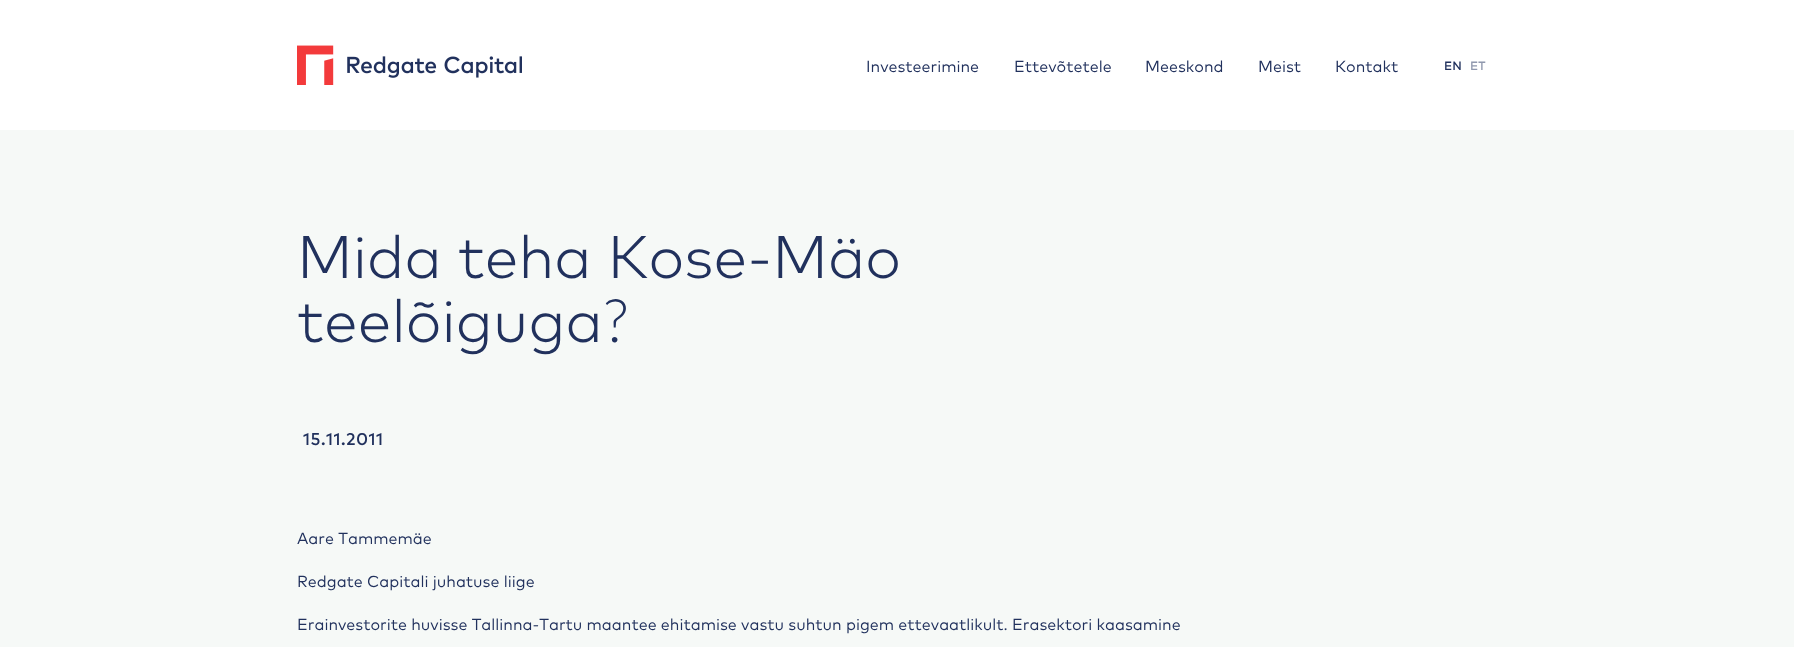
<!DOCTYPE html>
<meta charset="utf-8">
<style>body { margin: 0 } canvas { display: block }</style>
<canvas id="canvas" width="1794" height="647"></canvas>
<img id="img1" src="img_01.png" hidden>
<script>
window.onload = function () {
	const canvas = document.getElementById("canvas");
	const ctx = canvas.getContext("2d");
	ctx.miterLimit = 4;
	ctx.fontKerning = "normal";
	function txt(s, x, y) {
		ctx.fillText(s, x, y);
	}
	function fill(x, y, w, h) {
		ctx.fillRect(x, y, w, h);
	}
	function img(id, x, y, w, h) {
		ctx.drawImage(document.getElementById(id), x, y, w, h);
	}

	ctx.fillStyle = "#FFFFFF";
	fill(0, 0, 1794, 647);
	img("img1", 297, 45, 225, 40);
	ctx.fillStyle = "#F6F9F7";
	fill(0, 130, 1794, 517);
	ctx.font = "16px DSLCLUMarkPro";
	ctx.fillStyle = "#21315D";
	txt("Investeerimine", 866, 72);
	txt("Ettevõtetele", 1014, 72);
	txt("Meeskond", 1145, 72);
	txt("Meist", 1258, 72);
	txt("Kontakt", 1335, 72);
	ctx.font = "500 12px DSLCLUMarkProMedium";
	txt("EN", 1444, 70);
	ctx.fillStyle = "#9098AE";
	txt("ET", 1470, 70);
	ctx.font = "300 60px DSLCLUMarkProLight";
	ctx.fillStyle = "#21315D";
	txt("Mida teha Kose-Mäo", 297, 278);
	txt("teelõiguga", 297, 342);
	ctx.font = "300 60px Lato";
	txt("?", 603, 342);
	ctx.letterSpacing = "0.5px";
	ctx.font = "500 17px DSLCLUMarkProMedium";
	txt("15.11.2011", 303, 445);
	ctx.letterSpacing = "0px";
	ctx.font = "16px DSLCLUMarkPro";
	txt("Aare Tammemäe", 297, 544);
	txt("Redgate Capitali juhatuse liige", 297, 587);
	txt("Erainvestorite huvisse Tallinna-Tartu maantee ehitamise vastu suhtun pigem ettevaatlikult. Erasektori kaasamine", 297, 630);
};
</script>
